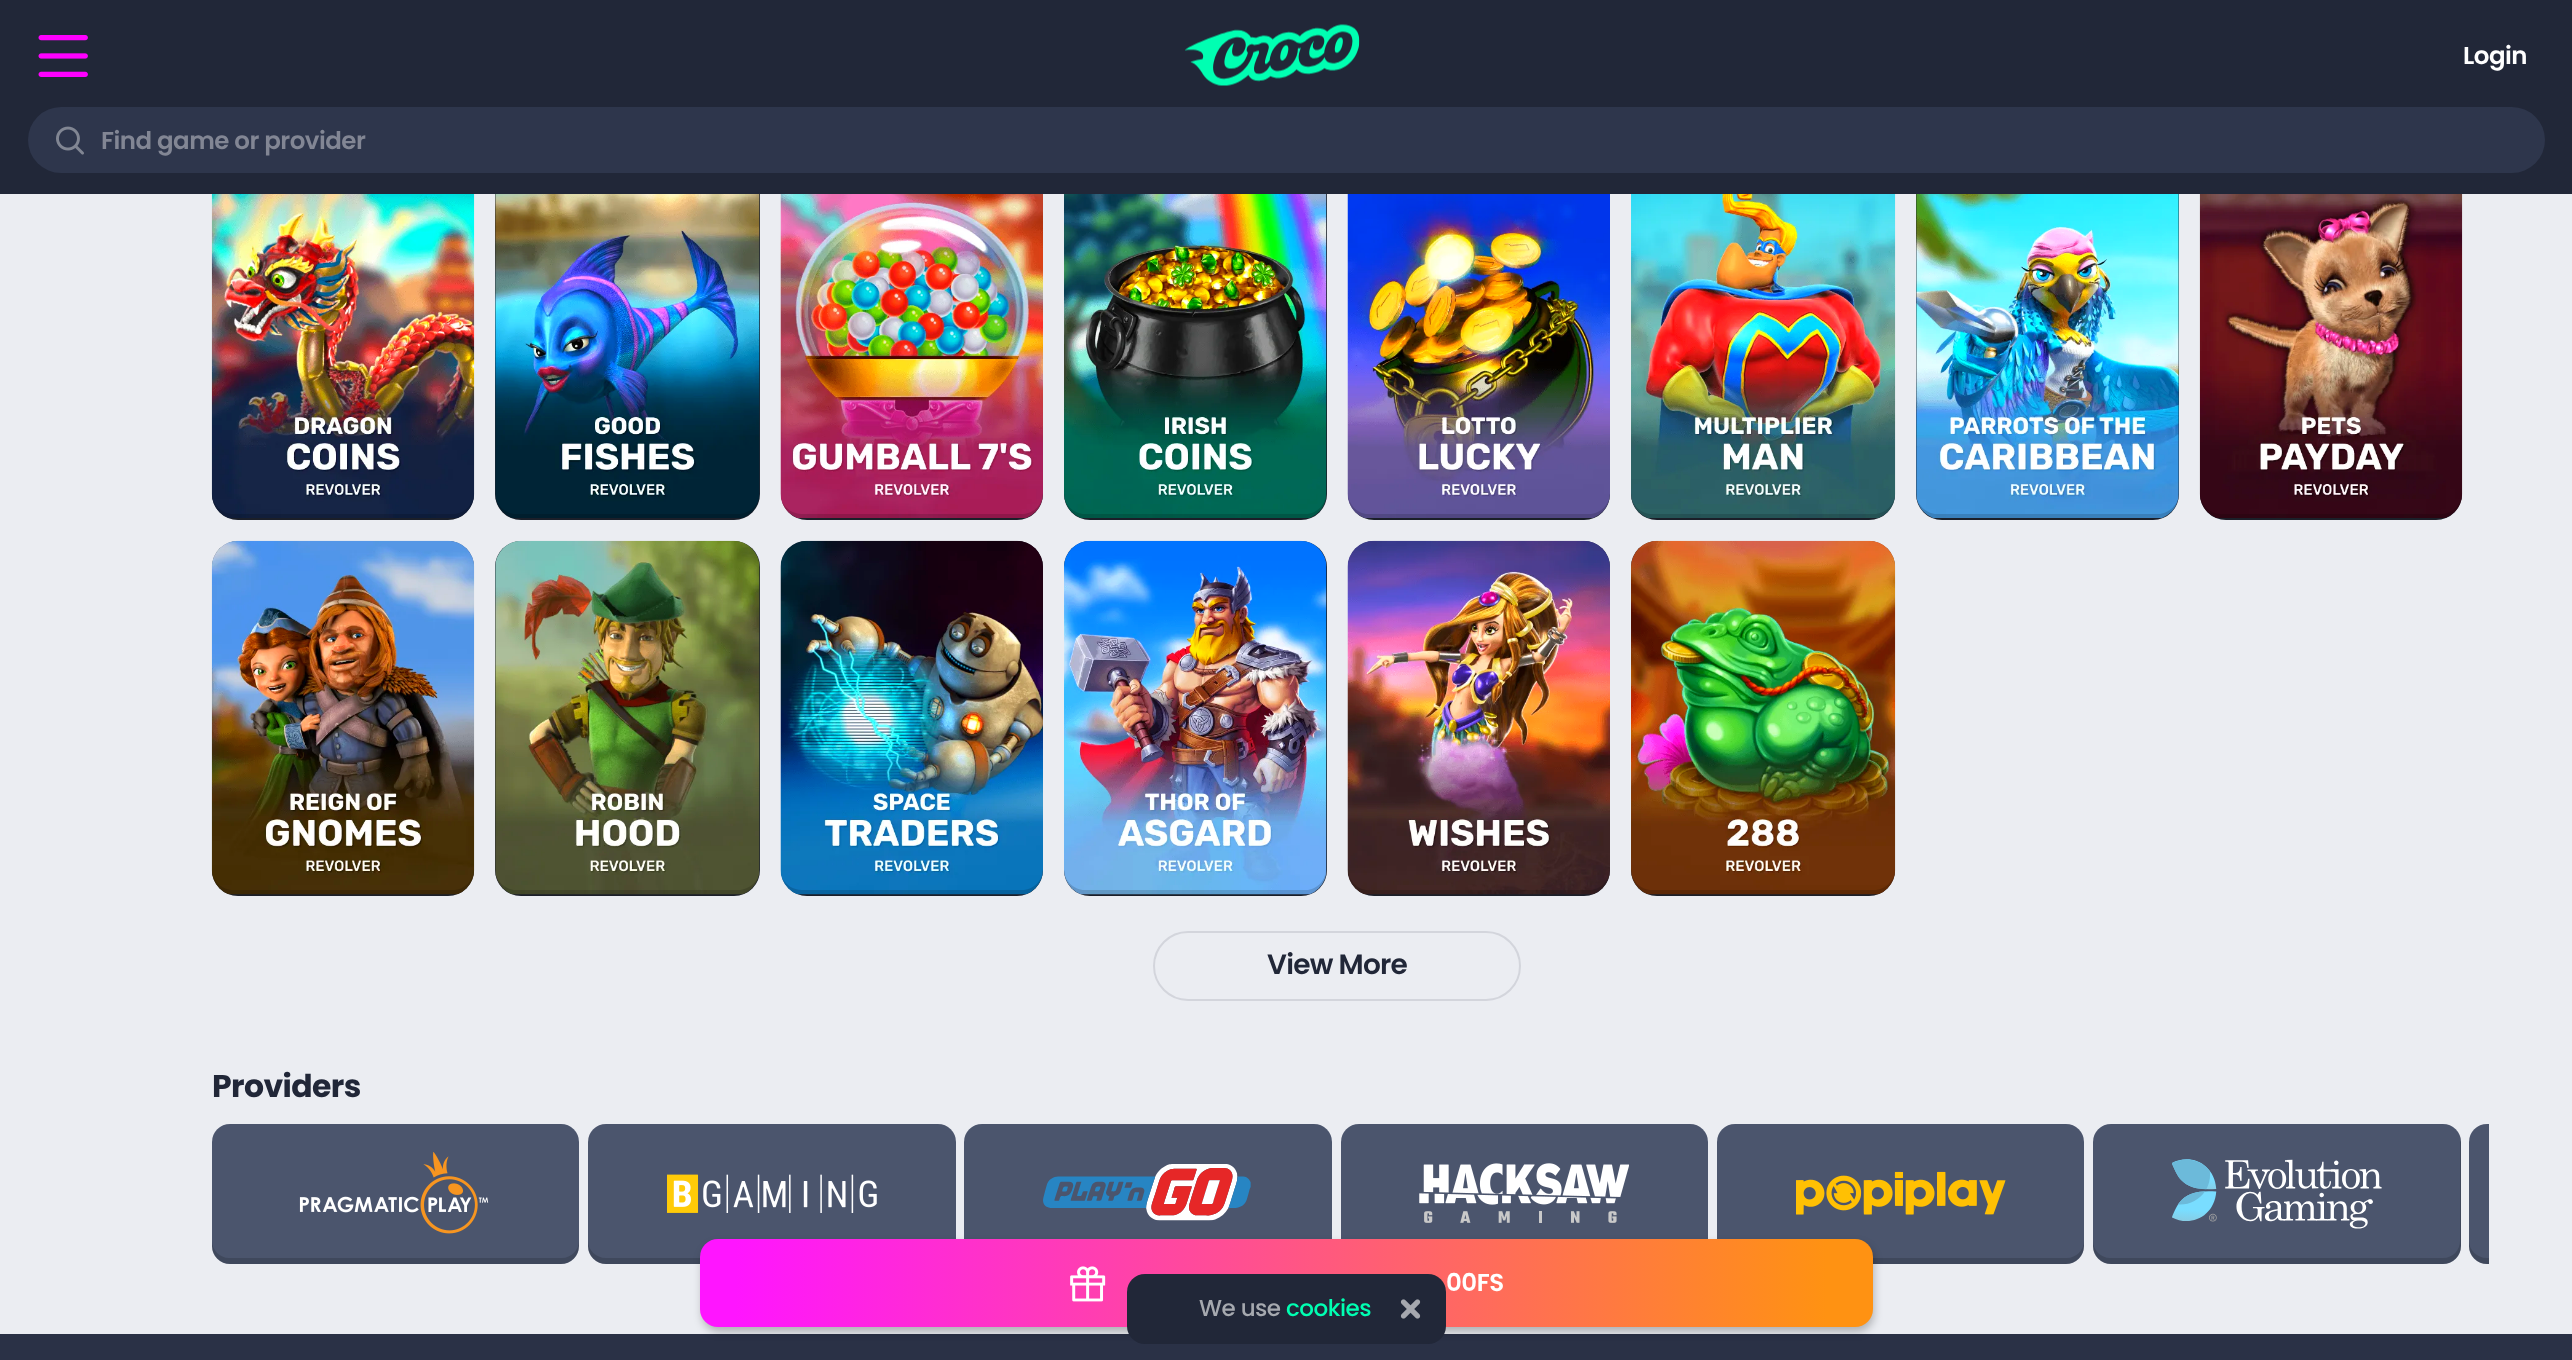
<!DOCTYPE html>
<meta charset="utf-8">
<style>body { margin: 0 } canvas { display: block }</style>
<canvas id="canvas" width="2572" height="1360"></canvas>
<img id="img1" src="img_07.png" hidden>
<img id="img2" src="img_01.png" hidden>
<img id="img3" src="img_02.png" hidden>
<img id="img4" src="img_03.png" hidden>
<img id="img5" src="img_04.png" hidden>
<img id="img6" src="img_05.png" hidden>
<img id="img7" src="img_06.png" hidden>
<img id="img8" src="img_08.png" hidden>
<img id="img9" src="img_09.png" hidden>
<img id="img10" src="img_10.png" hidden>
<img id="img11" src="img_11.png" hidden>
<img id="img12" src="img_12.png" hidden>
<img id="img13" src="img_13.png" hidden>
<img id="img14" src="img_14.png" hidden>
<img id="img15" src="img_15.png" hidden>
<img id="img16" src="img_16.png" hidden>
<img id="img17" src="img_17.png" hidden>
<img id="img18" src="img_18.png" hidden>
<img id="img19" src="img_19.png" hidden>
<img id="img20" src="img_20.png" hidden>
<img id="img21" src="img_21.png" hidden>
<img id="img22" src="img_22.png" hidden>
<img id="img23" src="img_23.png" hidden>
<img id="img24" src="img_24.png" hidden>
<img id="img25" src="img_25.png" hidden>
<script>
window.onload = function () {
	const canvas = document.getElementById("canvas");
	const ctx = canvas.getContext("2d");
	ctx.miterLimit = 4;
	ctx.fontKerning = "normal";
	function txt(s, x, y) {
		ctx.fillText(s, x, y);
	}
	function fill(x, y, w, h) {
		ctx.fillRect(x, y, w, h);
	}
	function round(x, y, w, h, r) {
		ctx.beginPath();
		ctx.roundRect(x, y, w, h, r);
		ctx.fill();
	}
	function img(id, x, y, w, h) {
		ctx.drawImage(document.getElementById(id), x, y, w, h);
	}
	let gradient;

	ctx.fillStyle = "#EBEDF2";
	fill(0, 0, 2572, 1360);
	ctx.fillStyle = "#202531";
	round(212, 165, 262, 355, 26);
	round(495, 165, 265, 355, 26);
	round(781, 165, 262, 355, 26);
	round(1064, 165, 263, 355, 26);
	img("img1", 1064, 194, 263, 324);
	ctx.fillStyle = "rgba(0, 0, 0, 0.15)";
	ctx.beginPath();
	ctx.moveTo(1064, 493);
	ctx.lineTo(1064, 494);
	ctx.bezierCurveTo(1064, 508, 1076, 520, 1090, 520);
	ctx.lineTo(1301, 520);
	ctx.bezierCurveTo(1315, 520, 1327, 508, 1327, 494);
	ctx.lineTo(1327, 191);
	ctx.lineTo(1326, 184);
	ctx.lineTo(1326, 493);
	ctx.bezierCurveTo(1326, 504, 1317, 514, 1306, 514);
	ctx.lineTo(1085, 514);
	ctx.bezierCurveTo(1073, 514, 1064, 504, 1064, 493);
	ctx.closePath();
	ctx.fill();
	ctx.fillStyle = "#202531";
	round(1348, 165, 262, 355, 26);
	round(1631, 165, 264, 355, 26);
	round(1916, 165, 263, 355, 26);
	round(2200, 165, 262, 355, 26);
	ctx.fillStyle = "#212738";
	fill(0, 0, 2572, 194);
	img("img2", 38, 35, 50, 42);
	img("img3", 1185, 24, 175, 62);
	ctx.fillStyle = "#2E364C";
	round(28, 107, 2517, 66, 33);
	img("img4", 56, 126, 28, 29);
	img("img5", 211, 194, 264, 324);
	ctx.fillStyle = "rgba(0, 0, 0, 0.15)";
	ctx.beginPath();
	ctx.moveTo(212, 493);
	ctx.lineTo(212, 494);
	ctx.bezierCurveTo(212, 508, 224, 520, 238, 520);
	ctx.lineTo(448, 520);
	ctx.bezierCurveTo(462, 520, 474, 508, 474, 494);
	ctx.lineTo(474, 493);
	ctx.bezierCurveTo(474, 504, 465, 514, 453, 514);
	ctx.lineTo(233, 514);
	ctx.bezierCurveTo(221, 514, 212, 504, 212, 493);
	ctx.closePath();
	ctx.fill();
	img("img6", 495, 194, 265, 324);
	ctx.beginPath();
	ctx.moveTo(495, 493);
	ctx.lineTo(495, 494);
	ctx.bezierCurveTo(495, 508, 507, 520, 521, 520);
	ctx.lineTo(734, 520);
	ctx.bezierCurveTo(748, 520, 760, 508, 760, 494);
	ctx.lineTo(760, 493);
	ctx.bezierCurveTo(760, 504, 750, 514, 738, 514);
	ctx.lineTo(516, 514);
	ctx.bezierCurveTo(505, 514, 495, 504, 495, 493);
	ctx.closePath();
	ctx.fill();
	img("img7", 780, 194, 263, 324);
	ctx.beginPath();
	ctx.moveTo(782, 502);
	ctx.bezierCurveTo(786, 512, 795, 520, 807, 520);
	ctx.lineTo(1017, 520);
	ctx.bezierCurveTo(1031, 520, 1043, 508, 1043, 494);
	ctx.lineTo(1043, 493);
	ctx.bezierCurveTo(1043, 504, 1034, 514, 1022, 514);
	ctx.lineTo(802, 514);
	ctx.bezierCurveTo(793, 514, 786, 509, 782, 502);
	ctx.closePath();
	ctx.fill();
	img("img8", 1347, 194, 263, 324);
	ctx.beginPath();
	ctx.moveTo(1348, 493);
	ctx.lineTo(1348, 494);
	ctx.bezierCurveTo(1348, 508, 1360, 520, 1374, 520);
	ctx.lineTo(1584, 520);
	ctx.bezierCurveTo(1598, 520, 1610, 508, 1610, 494);
	ctx.lineTo(1610, 493);
	ctx.bezierCurveTo(1610, 504, 1601, 514, 1589, 514);
	ctx.lineTo(1368, 514);
	ctx.bezierCurveTo(1357, 514, 1348, 504, 1348, 493);
	ctx.closePath();
	ctx.fill();
	img("img9", 1631, 194, 265, 324);
	ctx.beginPath();
	ctx.moveTo(1631, 493);
	ctx.lineTo(1631, 494);
	ctx.bezierCurveTo(1631, 508, 1643, 520, 1657, 520);
	ctx.lineTo(1869, 520);
	ctx.bezierCurveTo(1883, 520, 1895, 508, 1895, 494);
	ctx.lineTo(1895, 493);
	ctx.bezierCurveTo(1895, 504, 1886, 514, 1874, 514);
	ctx.lineTo(1652, 514);
	ctx.bezierCurveTo(1640, 514, 1631, 504, 1631, 493);
	ctx.closePath();
	ctx.fill();
	img("img10", 1916, 194, 263, 324);
	ctx.beginPath();
	ctx.moveTo(1916, 493);
	ctx.lineTo(1916, 494);
	ctx.bezierCurveTo(1916, 508, 1928, 520, 1942, 520);
	ctx.lineTo(2153, 520);
	ctx.bezierCurveTo(2167, 520, 2179, 508, 2179, 494);
	ctx.lineTo(2179, 493);
	ctx.bezierCurveTo(2179, 504, 2169, 514, 2158, 514);
	ctx.lineTo(1937, 514);
	ctx.bezierCurveTo(1926, 514, 1916, 504, 1916, 493);
	ctx.closePath();
	ctx.fill();
	img("img11", 2199, 194, 264, 324);
	ctx.beginPath();
	ctx.moveTo(2200, 493);
	ctx.lineTo(2200, 494);
	ctx.bezierCurveTo(2200, 508, 2212, 520, 2226, 520);
	ctx.lineTo(2436, 520);
	ctx.bezierCurveTo(2450, 520, 2462, 508, 2462, 494);
	ctx.lineTo(2462, 493);
	ctx.bezierCurveTo(2462, 504, 2453, 514, 2441, 514);
	ctx.lineTo(2221, 514);
	ctx.bezierCurveTo(2209, 514, 2200, 504, 2200, 493);
	ctx.closePath();
	ctx.fill();
	ctx.fillStyle = "#202531";
	round(212, 541, 262, 355, 26);
	img("img12", 211, 540, 264, 355);
	ctx.fillStyle = "rgba(0, 0, 0, 0.15)";
	ctx.beginPath();
	ctx.moveTo(212, 869);
	ctx.lineTo(212, 870);
	ctx.bezierCurveTo(212, 884, 224, 896, 238, 896);
	ctx.lineTo(448, 896);
	ctx.bezierCurveTo(462, 896, 474, 884, 474, 870);
	ctx.lineTo(474, 869);
	ctx.bezierCurveTo(474, 880, 465, 890, 453, 890);
	ctx.lineTo(233, 890);
	ctx.bezierCurveTo(221, 890, 212, 880, 212, 869);
	ctx.closePath();
	ctx.fill();
	ctx.fillStyle = "#202531";
	round(495, 541, 265, 355, 26);
	img("img13", 495, 540, 265, 355);
	ctx.fillStyle = "rgba(0, 0, 0, 0.15)";
	ctx.beginPath();
	ctx.moveTo(495, 869);
	ctx.lineTo(495, 870);
	ctx.bezierCurveTo(495, 884, 507, 896, 521, 896);
	ctx.lineTo(734, 896);
	ctx.bezierCurveTo(748, 896, 760, 884, 760, 870);
	ctx.lineTo(760, 869);
	ctx.bezierCurveTo(760, 880, 750, 890, 738, 890);
	ctx.lineTo(516, 890);
	ctx.bezierCurveTo(505, 890, 495, 880, 495, 869);
	ctx.closePath();
	ctx.fill();
	ctx.fillStyle = "#202531";
	round(781, 541, 262, 355, 26);
	img("img14", 780, 540, 263, 355);
	ctx.fillStyle = "rgba(0, 0, 0, 0.15)";
	ctx.beginPath();
	ctx.moveTo(782, 878);
	ctx.bezierCurveTo(786, 888, 795, 896, 807, 896);
	ctx.lineTo(1017, 896);
	ctx.bezierCurveTo(1031, 896, 1043, 884, 1043, 870);
	ctx.lineTo(1043, 869);
	ctx.bezierCurveTo(1043, 880, 1034, 890, 1022, 890);
	ctx.lineTo(802, 890);
	ctx.bezierCurveTo(793, 890, 786, 885, 782, 878);
	ctx.closePath();
	ctx.fill();
	ctx.fillStyle = "#202531";
	round(1064, 541, 263, 355, 26);
	img("img15", 1064, 540, 263, 355);
	ctx.fillStyle = "rgba(0, 0, 0, 0.15)";
	ctx.beginPath();
	ctx.moveTo(1064, 869);
	ctx.lineTo(1064, 870);
	ctx.bezierCurveTo(1064, 884, 1076, 896, 1090, 896);
	ctx.lineTo(1301, 896);
	ctx.bezierCurveTo(1315, 896, 1327, 884, 1327, 870);
	ctx.lineTo(1327, 567);
	ctx.lineTo(1326, 560);
	ctx.lineTo(1326, 869);
	ctx.bezierCurveTo(1326, 880, 1317, 890, 1306, 890);
	ctx.lineTo(1085, 890);
	ctx.bezierCurveTo(1073, 890, 1064, 880, 1064, 869);
	ctx.closePath();
	ctx.fill();
	ctx.fillStyle = "#202531";
	round(1348, 541, 262, 355, 26);
	img("img16", 1347, 540, 263, 355);
	ctx.fillStyle = "rgba(0, 0, 0, 0.15)";
	ctx.beginPath();
	ctx.moveTo(1348, 869);
	ctx.lineTo(1348, 870);
	ctx.bezierCurveTo(1348, 884, 1360, 896, 1374, 896);
	ctx.lineTo(1584, 896);
	ctx.bezierCurveTo(1598, 896, 1610, 884, 1610, 870);
	ctx.lineTo(1610, 869);
	ctx.bezierCurveTo(1610, 880, 1601, 890, 1589, 890);
	ctx.lineTo(1368, 890);
	ctx.bezierCurveTo(1357, 890, 1348, 880, 1348, 869);
	ctx.closePath();
	ctx.fill();
	ctx.fillStyle = "#202531";
	round(1631, 541, 264, 355, 26);
	img("img17", 1631, 540, 265, 355);
	ctx.fillStyle = "rgba(0, 0, 0, 0.15)";
	ctx.beginPath();
	ctx.moveTo(1631, 869);
	ctx.lineTo(1631, 870);
	ctx.bezierCurveTo(1631, 884, 1643, 896, 1657, 896);
	ctx.lineTo(1869, 896);
	ctx.bezierCurveTo(1883, 896, 1895, 884, 1895, 870);
	ctx.lineTo(1895, 869);
	ctx.bezierCurveTo(1895, 880, 1886, 890, 1874, 890);
	ctx.lineTo(1652, 890);
	ctx.bezierCurveTo(1640, 890, 1631, 880, 1631, 869);
	ctx.closePath();
	ctx.fill();
	ctx.beginPath();
	ctx.roundRect(1154, 932, 366, 68, 34);
	ctx.strokeStyle = "#D3D5DC";
	ctx.lineWidth = 2;
	ctx.stroke();
	ctx.fillStyle = "#4B556D";
	round(212, 1124, 367, 140, 18);
	ctx.fillStyle = "rgba(0, 0, 0, 0.15)";
	ctx.beginPath();
	ctx.moveTo(212, 1241);
	ctx.lineTo(212, 1246);
	ctx.bezierCurveTo(212, 1256, 220, 1264, 230, 1264);
	ctx.lineTo(561, 1264);
	ctx.bezierCurveTo(571, 1264, 579, 1256, 579, 1246);
	ctx.lineTo(579, 1241);
	ctx.bezierCurveTo(579, 1250, 571, 1258, 562, 1258);
	ctx.lineTo(229, 1258);
	ctx.bezierCurveTo(220, 1258, 212, 1250, 212, 1241);
	ctx.closePath();
	ctx.fill();
	img("img18", 299, 1152, 190, 82);
	ctx.fillStyle = "#4B556D";
	round(588, 1124, 368, 140, 18);
	ctx.fillStyle = "rgba(0, 0, 0, 0.15)";
	ctx.beginPath();
	ctx.moveTo(588, 1241);
	ctx.lineTo(588, 1246);
	ctx.bezierCurveTo(588, 1256, 596, 1264, 606, 1264);
	ctx.lineTo(938, 1264);
	ctx.bezierCurveTo(948, 1264, 956, 1256, 956, 1246);
	ctx.lineTo(956, 1241);
	ctx.bezierCurveTo(956, 1250, 948, 1258, 938, 1258);
	ctx.lineTo(606, 1258);
	ctx.bezierCurveTo(596, 1258, 588, 1250, 588, 1241);
	ctx.closePath();
	ctx.fill();
	img("img19", 667, 1174, 210, 39);
	ctx.fillStyle = "#4B556D";
	round(964, 1124, 368, 140, 18);
	img("img20", 1043, 1164, 208, 57);
	round(1341, 1124, 367, 140, 18);
	img("img21", 1419, 1163, 210, 60);
	round(1717, 1124, 367, 140, 18);
	ctx.fillStyle = "rgba(0, 0, 0, 0.15)";
	ctx.beginPath();
	ctx.moveTo(1717, 1241);
	ctx.lineTo(1717, 1246);
	ctx.bezierCurveTo(1717, 1256, 1725, 1264, 1735, 1264);
	ctx.lineTo(2066, 1264);
	ctx.bezierCurveTo(2076, 1264, 2084, 1256, 2084, 1246);
	ctx.lineTo(2084, 1241);
	ctx.bezierCurveTo(2084, 1250, 2076, 1258, 2067, 1258);
	ctx.lineTo(1734, 1258);
	ctx.bezierCurveTo(1725, 1258, 1717, 1250, 1717, 1241);
	ctx.closePath();
	ctx.fill();
	img("img22", 1796, 1171, 210, 44);
	ctx.fillStyle = "#4B556D";
	round(2093, 1124, 368, 140, 18);
	ctx.fillStyle = "rgba(0, 0, 0, 0.15)";
	ctx.beginPath();
	ctx.moveTo(2093, 1241);
	ctx.lineTo(2093, 1246);
	ctx.bezierCurveTo(2093, 1256, 2101, 1264, 2111, 1264);
	ctx.lineTo(2443, 1264);
	ctx.bezierCurveTo(2453, 1264, 2461, 1256, 2461, 1246);
	ctx.lineTo(2461, 1142);
	ctx.lineTo(2460, 1136);
	ctx.lineTo(2460, 1241);
	ctx.bezierCurveTo(2460, 1250, 2453, 1258, 2443, 1258);
	ctx.lineTo(2110, 1258);
	ctx.bezierCurveTo(2101, 1258, 2093, 1250, 2093, 1241);
	ctx.closePath();
	ctx.fill();
	img("img23", 2172, 1159, 210, 70);
	ctx.fillStyle = "#4B556D";
	ctx.beginPath();
	ctx.roundRect(2469, 1124, 20, 140, [18, 0, 0, 18]);
	ctx.fill();
	ctx.save();
	ctx.beginPath();
	ctx.rect(186, 1124, 2303, 140);
	ctx.clip();
	ctx.fillStyle = "rgba(0, 0, 0, 0.15)";
	ctx.beginPath();
	ctx.moveTo(2469, 1241);
	ctx.lineTo(2469, 1246);
	ctx.bezierCurveTo(2469, 1256, 2477, 1264, 2487, 1264);
	ctx.lineTo(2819, 1264);
	ctx.bezierCurveTo(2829, 1264, 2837, 1256, 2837, 1246);
	ctx.lineTo(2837, 1241);
	ctx.bezierCurveTo(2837, 1250, 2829, 1258, 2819, 1258);
	ctx.lineTo(2487, 1258);
	ctx.bezierCurveTo(2477, 1258, 2469, 1250, 2469, 1241);
	ctx.closePath();
	ctx.fill();
	ctx.restore();
	ctx.fillStyle = "#2A3146";
	fill(0, 1334, 2572, 26);
	ctx.fillStyle = "rgba(0, 0, 0, 0.25)";
	ctx.filter = "blur(4.5px)";
	ctx.beginPath();
	ctx.roundRect(702, 1244, 1172, 88, 18);
	ctx.fill();
	ctx.filter = "none";
	gradient = ctx.createLinearGradient(700, 1283, 1873, 1283);
	gradient.addColorStop(0.03, "#FF15FF");
	gradient.addColorStop(0.96, "#FF9212");
	ctx.fillStyle = gradient;
	round(700, 1239, 1173, 88, 18);
	img("img24", 1070, 1266, 36, 36);
	ctx.fillStyle = "#212738";
	round(1127, 1274, 319, 70, 18);
	img("img25", 1400, 1299, 21, 20);
	ctx.letterSpacing = "-0.5px";
	ctx.font = "600 24.5px Poppins";
	ctx.fillStyle = "#FFFFFF";
	txt("Login", 2463, 64);
	ctx.fillStyle = "#828694";
	txt("Find game or provider", 101, 149);
	ctx.letterSpacing = "-0.75px";
	ctx.font = "600 28px Poppins";
	ctx.fillStyle = "#212738";
	txt("View More", 1267, 974);
	ctx.letterSpacing = "-0.6px";
	ctx.font = "bold 31.5px Poppins";
	txt("Providers", 212, 1097);
	ctx.letterSpacing = "-0.5px";
	ctx.font = "600 24.5px Poppins";
	ctx.fillStyle = "#FFFFFF";
	txt("00FS", 1446, 1291);
	ctx.font = "500 23px Poppins";
	ctx.fillStyle = "#A6A9AF";
	txt("We use", 1199, 1316);
	ctx.fillStyle = "#00FFB2";
	txt("cookies", 1286, 1316);
};
</script>
